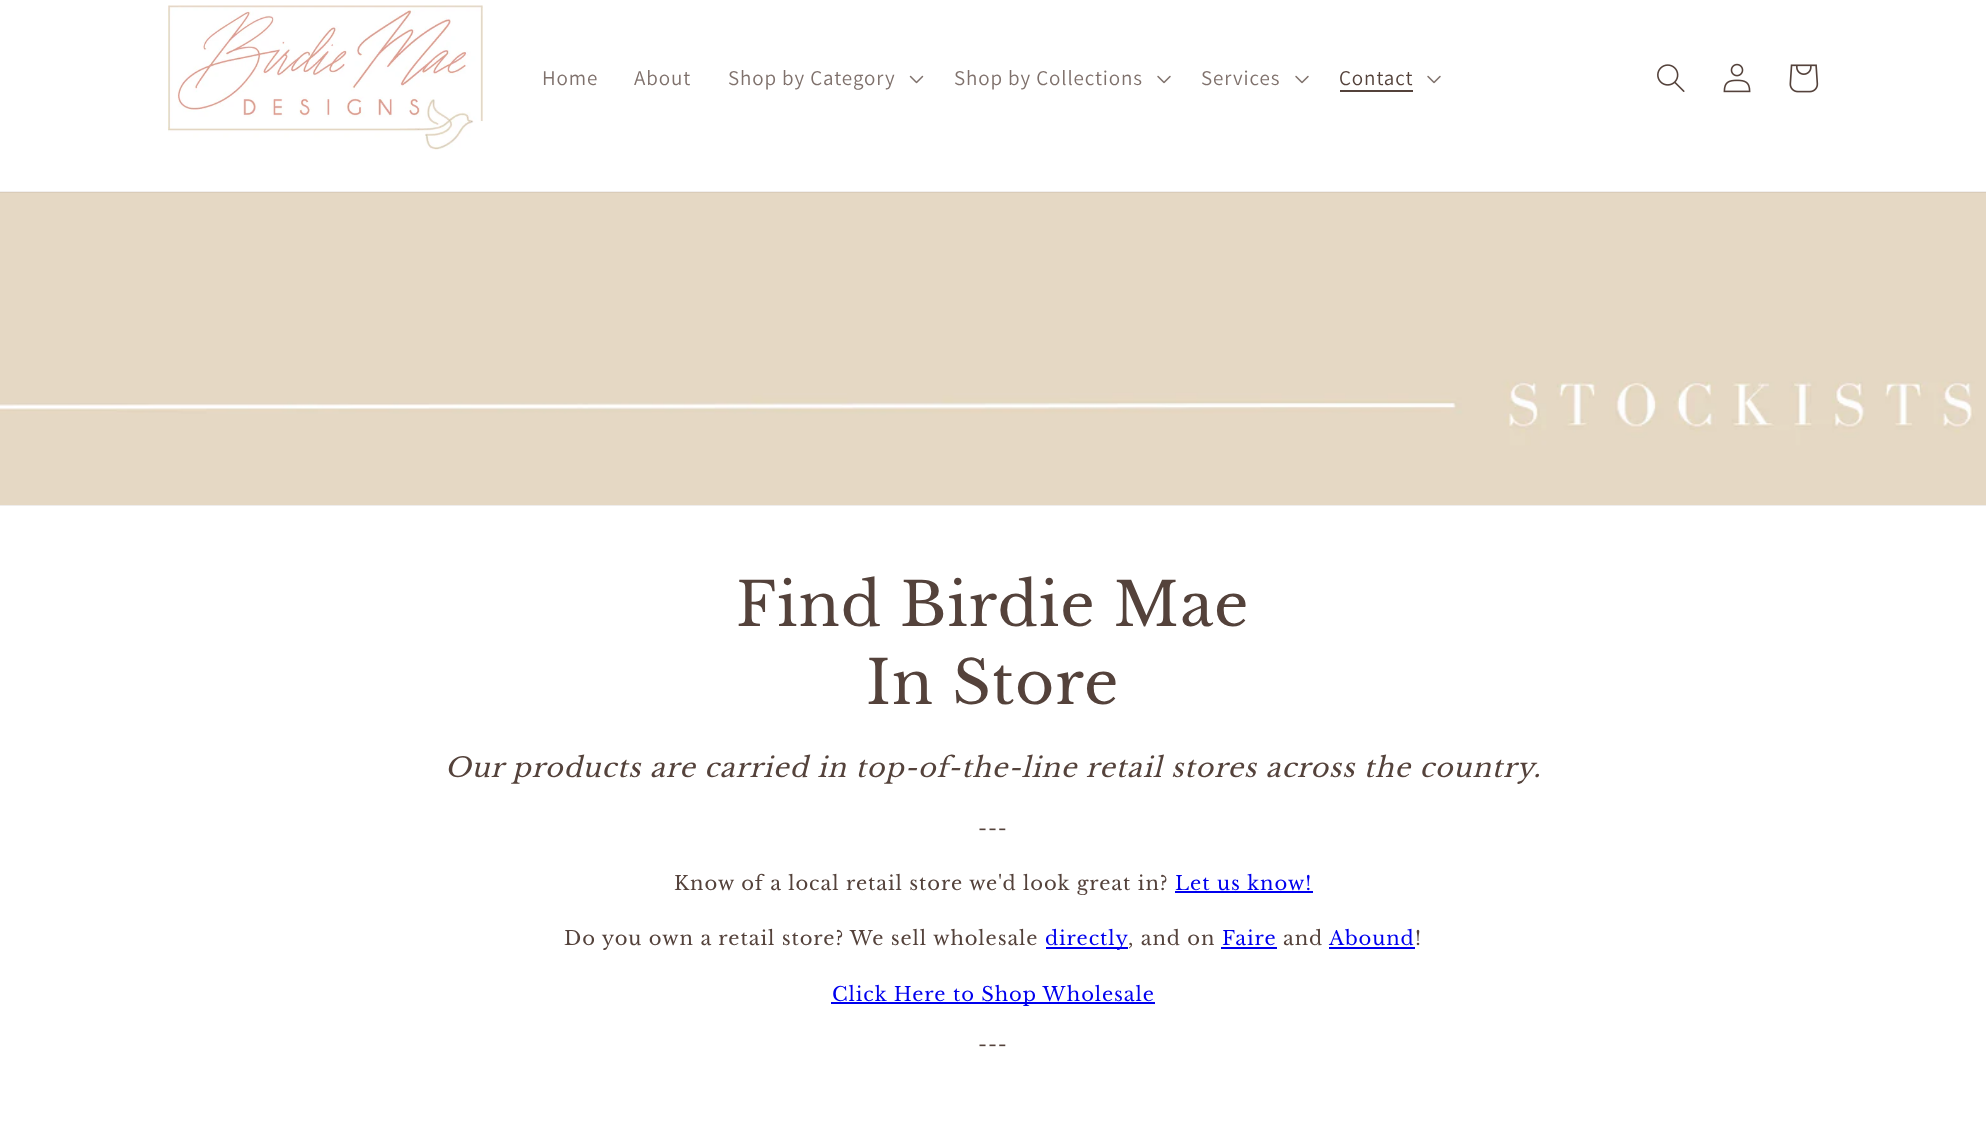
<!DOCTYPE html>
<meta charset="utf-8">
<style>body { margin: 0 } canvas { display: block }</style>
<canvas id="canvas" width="1986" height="1137"></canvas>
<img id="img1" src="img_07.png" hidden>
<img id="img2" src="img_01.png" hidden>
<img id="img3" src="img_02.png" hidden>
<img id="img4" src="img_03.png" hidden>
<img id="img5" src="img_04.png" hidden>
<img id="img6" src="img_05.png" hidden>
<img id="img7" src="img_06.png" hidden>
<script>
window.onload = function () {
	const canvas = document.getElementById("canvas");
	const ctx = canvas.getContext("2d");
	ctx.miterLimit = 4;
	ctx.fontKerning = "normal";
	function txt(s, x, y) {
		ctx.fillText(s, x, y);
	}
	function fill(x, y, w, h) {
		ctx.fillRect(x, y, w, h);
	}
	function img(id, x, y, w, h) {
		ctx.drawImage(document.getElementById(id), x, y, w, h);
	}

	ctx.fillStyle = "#FFFFFF";
	fill(0, 0, 1986, 1137);
	img("img1", 0, 192, 1986, 313);
	ctx.fillStyle = "rgba(84, 66, 59, 0.08)";
	fill(0, 191, 1986, 2);
	img("img2", 168, 5, 315, 145);
	img("img3", 909, 75, 15, 9);
	img("img4", 1157, 75, 14, 9);
	img("img4", 1295, 75, 14, 9);
	ctx.fillStyle = "#54423B";
	fill(1340, 90, 73, 2);
	img("img4", 1427, 75, 14, 9);
	img("img5", 1657, 64, 28, 28);
	img("img6", 1723, 63, 28, 30);
	img("img7", 1789, 64, 30, 29);
	ctx.fillStyle = "#EFEDEC";
	fill(0, 505, 1986, 1);
	ctx.fillStyle = "#0000EE";
	fill(1175, 891, 138, 2);
	fill(1046, 947, 82, 2);
	fill(1221, 947, 56, 2);
	fill(1329, 947, 86, 2);
	fill(831, 1002, 324, 2);
	ctx.letterSpacing = "0.9px";
	ctx.font = "21px Assistant";
	ctx.fillStyle = "#7F716C";
	txt("Home", 542, 85);
	txt("About", 634, 85);
	txt("Shop by Category", 728, 85);
	txt("Shop by Collections", 954, 85);
	txt("Services", 1201, 85);
	ctx.fillStyle = "#54423B";
	txt("Contact", 1339, 85);
	ctx.font = "60px Libre Baskerville";
	txt("Find Birdie Mae", 736, 626);
	txt("In Store", 866, 704);
	ctx.font = "italic 27px Libre Baskerville";
	txt("Our products are carried in top-of-the-line retail stores across the country.", 445, 777);
	ctx.font = "19.5px Libre Baskerville";
	txt("---", 978, 835);
	txt("Know of a local retail store we'd look great in?", 674, 890);
	ctx.fillStyle = "#0000EE";
	txt("Let us know!", 1175, 890);
	ctx.fillStyle = "#54423B";
	txt("Do you own a retail store? We sell wholesale", 564, 945);
	ctx.fillStyle = "#0000EE";
	txt("directly", 1045, 945);
	ctx.fillStyle = "#54423B";
	txt(", and on", 1128, 945);
	ctx.fillStyle = "#0000EE";
	txt("Faire", 1222, 945);
	ctx.fillStyle = "#54423B";
	txt("and", 1283, 945);
	ctx.fillStyle = "#0000EE";
	txt("Abound", 1329, 945);
	ctx.fillStyle = "#54423B";
	txt("!", 1415, 945);
	ctx.fillStyle = "#0000EE";
	txt("Click Here to Shop Wholesale", 832, 1001);
	ctx.fillStyle = "#54423B";
	txt("---", 978, 1051);
};
</script>
